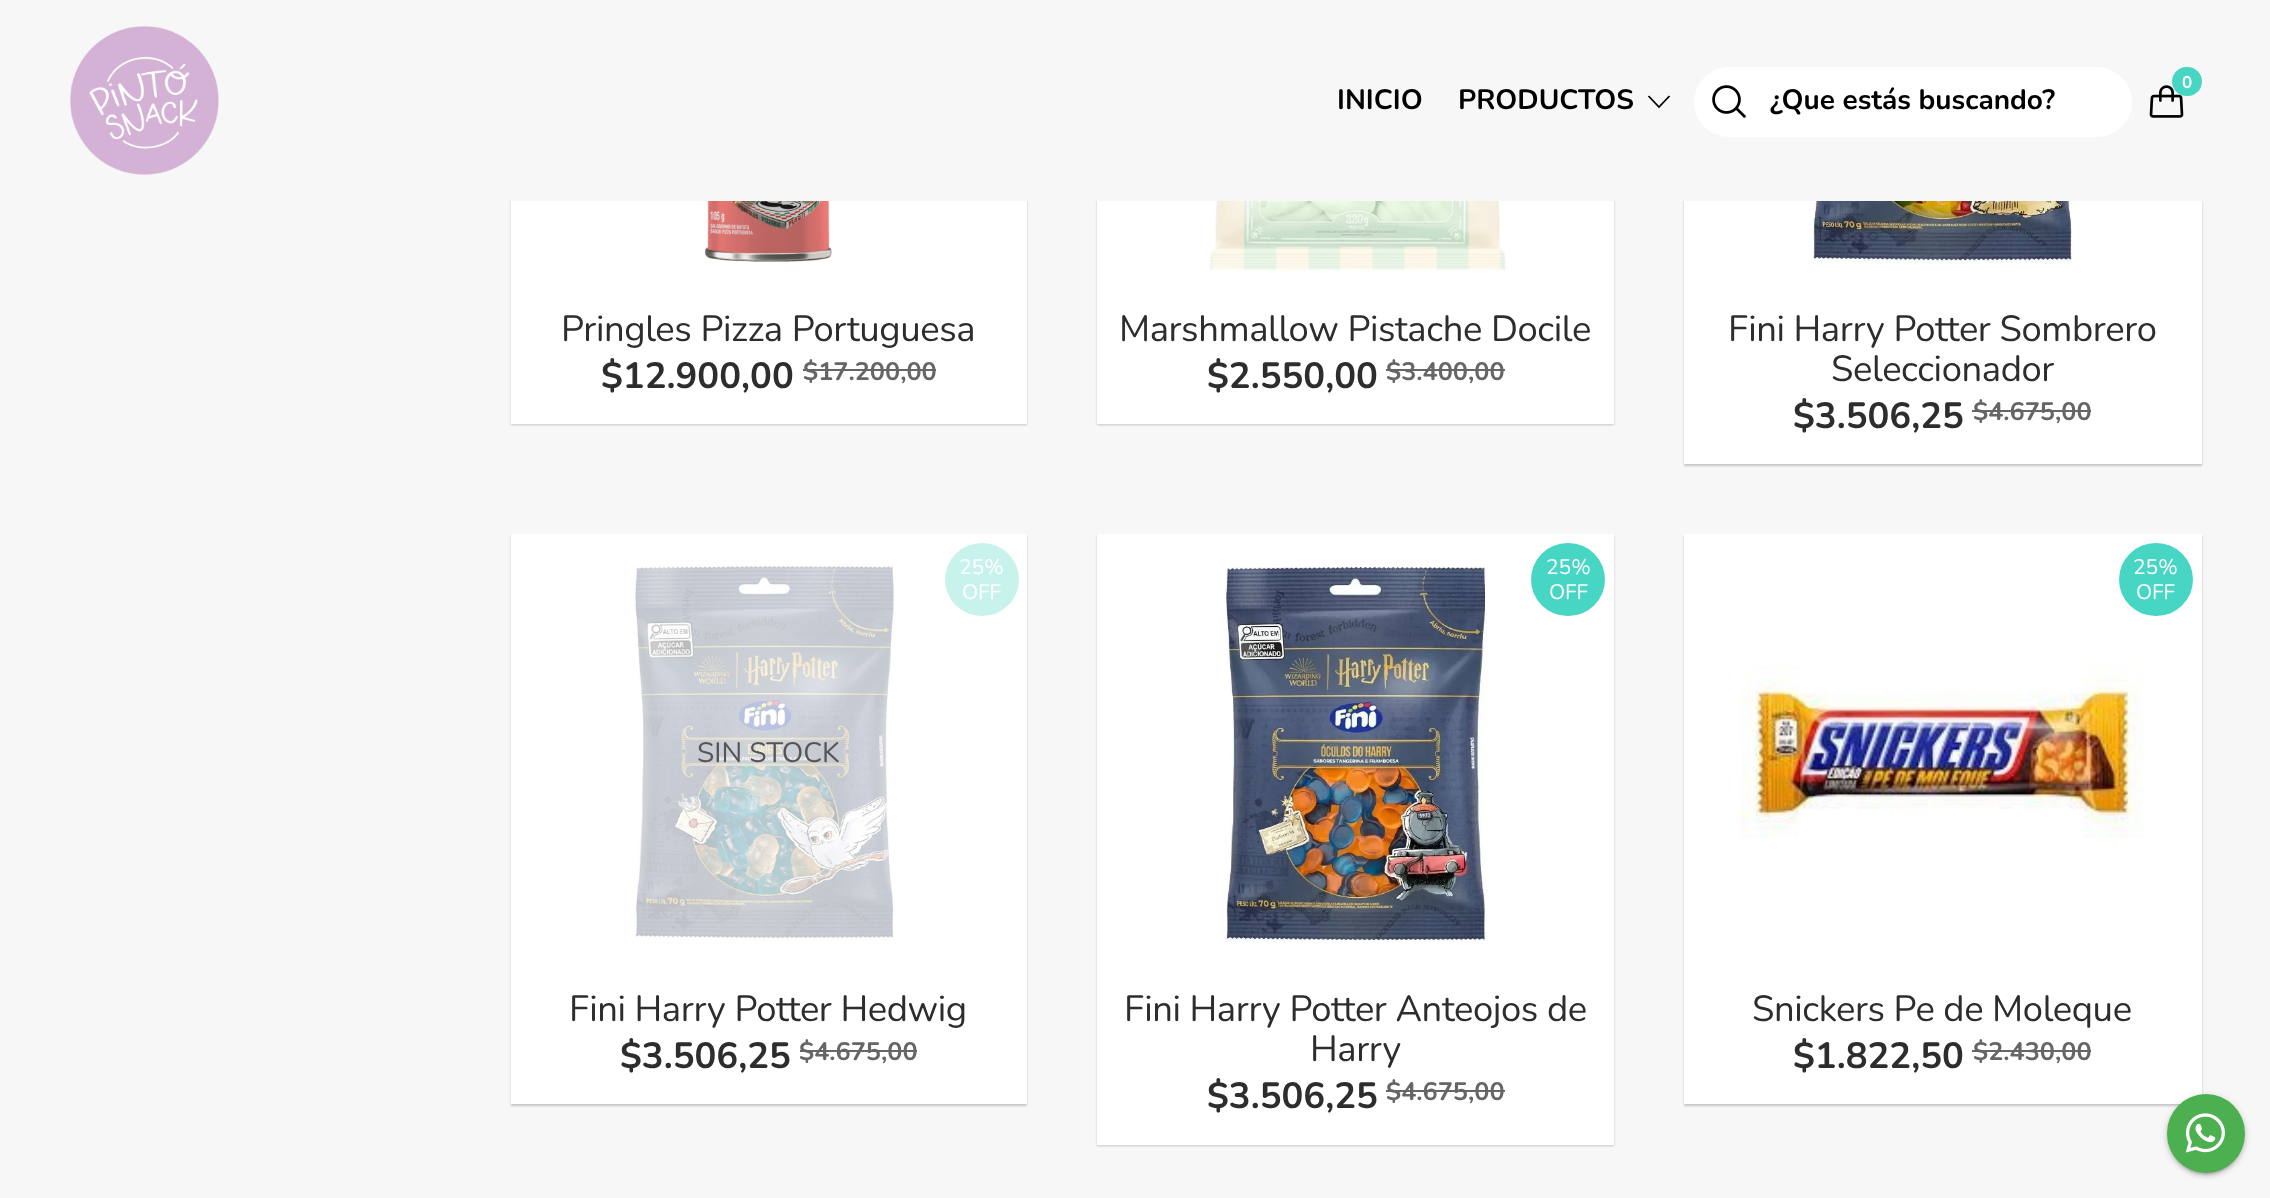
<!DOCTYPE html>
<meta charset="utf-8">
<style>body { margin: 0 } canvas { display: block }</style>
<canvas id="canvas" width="2270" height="1198"></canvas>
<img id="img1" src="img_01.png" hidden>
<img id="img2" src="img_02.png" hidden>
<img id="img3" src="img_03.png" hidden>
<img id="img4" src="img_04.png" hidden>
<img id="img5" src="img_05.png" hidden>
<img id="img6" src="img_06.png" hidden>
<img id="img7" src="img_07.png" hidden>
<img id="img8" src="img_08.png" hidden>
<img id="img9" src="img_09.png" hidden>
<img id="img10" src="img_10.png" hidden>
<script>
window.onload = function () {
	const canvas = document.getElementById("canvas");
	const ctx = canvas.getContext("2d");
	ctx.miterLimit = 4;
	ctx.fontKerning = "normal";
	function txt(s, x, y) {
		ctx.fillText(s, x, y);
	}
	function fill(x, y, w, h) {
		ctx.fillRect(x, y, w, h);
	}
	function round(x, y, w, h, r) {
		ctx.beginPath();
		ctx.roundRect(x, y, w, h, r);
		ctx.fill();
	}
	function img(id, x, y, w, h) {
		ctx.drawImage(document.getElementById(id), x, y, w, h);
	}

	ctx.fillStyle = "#F7F7F7";
	fill(0, 0, 2270, 1198);
	ctx.fillStyle = "rgba(0, 0, 0, 0.2)";
	ctx.filter = "blur(1px)";
	ctx.beginPath();
	ctx.rect(511, -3, 516, 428);
	ctx.fill();
	ctx.filter = "none";
	ctx.filter = "blur(1px)";
	ctx.beginPath();
	ctx.rect(1097, -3, 517, 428);
	ctx.fill();
	ctx.filter = "none";
	ctx.filter = "blur(1px)";
	ctx.beginPath();
	ctx.rect(1684, -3, 518, 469);
	ctx.fill();
	ctx.filter = "none";
	ctx.fillStyle = "#F7F7F7";
	fill(509, 0, 1695, 201);
	img("img1", 70, 26, 149, 149);
	img("img2", 2149, 85, 35, 33);
	ctx.fillStyle = "#47D6C4";
	round(2172, 67, 30, 29, 14.5);
	ctx.beginPath();
	ctx.moveTo(1669.5, 96);
	ctx.lineTo(1659, 107);
	ctx.lineTo(1648.5, 96);
	ctx.strokeStyle = "#000000";
	ctx.lineWidth = 1.8;
	ctx.stroke();
	ctx.fillStyle = "#FFFFFF";
	round(1694, 67, 438, 70, 35);
	img("img3", 1712, 85, 34, 33);
	fill(511, 201, 516, 223);
	img("img4", 704, 201, 128, 61);
	ctx.fillStyle = "#666666";
	fill(803, 369, 133, 2);
	ctx.fillStyle = "#FFFFFF";
	fill(1097, 201, 517, 223);
	img("img5", 1206, 201, 301, 74);
	ctx.fillStyle = "rgba(255, 255, 255, 0.7)";
	fill(1206, 201, 301, 74);
	ctx.fillStyle = "#666666";
	fill(1386, 369, 119, 2);
	ctx.fillStyle = "#FFFFFF";
	fill(1684, 201, 518, 263);
	img("img6", 1812, 201, 260, 63);
	ctx.fillStyle = "#666666";
	fill(1972, 410, 119, 2);
	ctx.fillStyle = "rgba(0, 0, 0, 0.2)";
	ctx.filter = "blur(1px)";
	ctx.beginPath();
	ctx.rect(511, 536, 516, 570);
	ctx.fill();
	ctx.filter = "none";
	ctx.fillStyle = "#FFFFFF";
	fill(511, 534, 516, 570);
	img("img7", 634, 564, 262, 377);
	ctx.fillStyle = "#C8F3ED";
	round(945, 543, 74, 73, 36.5);
	ctx.fillStyle = "#666666";
	fill(800, 1050, 117, 2);
	ctx.fillStyle = "rgba(0, 0, 0, 0.2)";
	ctx.filter = "blur(1px)";
	ctx.beginPath();
	ctx.rect(1097, 536, 517, 610);
	ctx.fill();
	ctx.filter = "none";
	ctx.fillStyle = "#FFFFFF";
	fill(1097, 534, 517, 611);
	img("img8", 1225, 567, 263, 375);
	ctx.fillStyle = "#47D6C4";
	round(1531, 543, 74, 73, 36.5);
	ctx.fillStyle = "#666666";
	fill(1386, 1090, 119, 2);
	ctx.fillStyle = "rgba(0, 0, 0, 0.2)";
	ctx.filter = "blur(1px)";
	ctx.beginPath();
	ctx.rect(1684, 536, 518, 570);
	ctx.fill();
	ctx.filter = "none";
	ctx.fillStyle = "#FFFFFF";
	fill(1684, 534, 518, 570);
	ctx.fillStyle = "#47D6C4";
	round(2119, 543, 74, 73, 36.5);
	img("img9", 1741, 665, 403, 173);
	ctx.fillStyle = "#666666";
	fill(1972, 1050, 119, 2);
	ctx.fillStyle = "rgba(0, 0, 0, 0.2)";
	ctx.filter = "blur(1px)";
	ctx.beginPath();
	ctx.roundRect(2170, 1103, 72, 71, 35.5);
	ctx.fill();
	ctx.filter = "none";
	ctx.fillStyle = "rgba(0, 0, 0, 0.12)";
	ctx.filter = "blur(4.5px)";
	ctx.beginPath();
	ctx.roundRect(2167, 1096, 78, 78, 39);
	ctx.fill();
	ctx.filter = "none";
	ctx.fillStyle = "rgba(0, 0, 0, 0.14)";
	ctx.filter = "blur(2px)";
	ctx.beginPath();
	ctx.roundRect(2167, 1097, 78, 79, 39);
	ctx.fill();
	ctx.filter = "none";
	ctx.fillStyle = "#4CAF50";
	round(2167, 1094, 78, 79, 39);
	img("img10", 2185, 1113, 40, 40);
	ctx.font = "bold 17px Nunito";
	ctx.fillStyle = "#FFFFFF";
	txt("0", 2182, 88);
	ctx.font = "bold 28px Nunito";
	ctx.fillStyle = "#000000";
	txt("INICIO", 1337, 109);
	txt("PRODUCTOS", 1458, 109);
	txt("¿Que estás buscando?", 1770, 109);
	ctx.letterSpacing = "-0.4px";
	ctx.font = "36.4px Nunito";
	ctx.fillStyle = "#2D2D2D";
	txt("Pringles Pizza Portuguesa", 561, 341);
	ctx.letterSpacing = "0px";
	ctx.font = "bold 36.4px Nunito";
	txt("$12.900,00", 601, 388);
	ctx.font = "bold 25.25px Nunito";
	ctx.fillStyle = "#666666";
	txt("$17.200,00", 803, 380);
	ctx.letterSpacing = "-0.4px";
	ctx.font = "36.4px Nunito";
	ctx.fillStyle = "#2D2D2D";
	txt("Marshmallow Pistache Docile", 1119, 341);
	ctx.letterSpacing = "0px";
	ctx.font = "bold 36.4px Nunito";
	txt("$2.550,00", 1207, 388);
	ctx.font = "bold 25.25px Nunito";
	ctx.fillStyle = "#666666";
	txt("$3.400,00", 1386, 380);
	ctx.letterSpacing = "-0.4px";
	ctx.font = "36.4px Nunito";
	ctx.fillStyle = "#2D2D2D";
	txt("Fini Harry Potter Sombrero", 1728, 341);
	txt("Seleccionador", 1831, 381);
	ctx.letterSpacing = "0px";
	ctx.font = "bold 36.4px Nunito";
	txt("$3.506,25", 1793, 428);
	ctx.font = "bold 25.25px Nunito";
	ctx.fillStyle = "#666666";
	txt("$4.675,00", 1973, 420);
	ctx.font = "21px Nunito";
	ctx.fillStyle = "#FFFFFF";
	txt("25%", 959, 574);
	txt("OFF", 962, 599);
	ctx.font = "28px Nunito";
	ctx.fillStyle = "#555555";
	txt("SIN STOCK", 697, 762);
	ctx.letterSpacing = "-0.4px";
	ctx.font = "36.4px Nunito";
	ctx.fillStyle = "#2D2D2D";
	txt("Fini Harry Potter Hedwig", 569, 1021);
	ctx.letterSpacing = "0px";
	ctx.font = "bold 36.4px Nunito";
	txt("$3.506,25", 620, 1068);
	ctx.font = "bold 25.25px Nunito";
	ctx.fillStyle = "#666666";
	txt("$4.675,00", 799, 1060);
	ctx.font = "21px Nunito";
	ctx.fillStyle = "#FFFFFF";
	txt("25%", 1546, 574);
	txt("OFF", 1549, 599);
	ctx.letterSpacing = "-0.4px";
	ctx.font = "36.4px Nunito";
	ctx.fillStyle = "#2D2D2D";
	txt("Fini Harry Potter Anteojos de", 1124, 1021);
	txt("Harry", 1310, 1061);
	ctx.letterSpacing = "0px";
	ctx.font = "bold 36.4px Nunito";
	txt("$3.506,25", 1207, 1108);
	ctx.font = "bold 25.25px Nunito";
	ctx.fillStyle = "#666666";
	txt("$4.675,00", 1386, 1100);
	ctx.font = "21px Nunito";
	ctx.fillStyle = "#FFFFFF";
	txt("25%", 2133, 574);
	txt("OFF", 2136, 599);
	ctx.letterSpacing = "-0.4px";
	ctx.font = "36.4px Nunito";
	ctx.fillStyle = "#2D2D2D";
	txt("Snickers Pe de Moleque", 1752, 1021);
	ctx.letterSpacing = "0px";
	ctx.font = "bold 36.4px Nunito";
	txt("$1.822,50", 1793, 1068);
	ctx.font = "bold 25.25px Nunito";
	ctx.fillStyle = "#666666";
	txt("$2.430,00", 1973, 1060);
};
</script>
